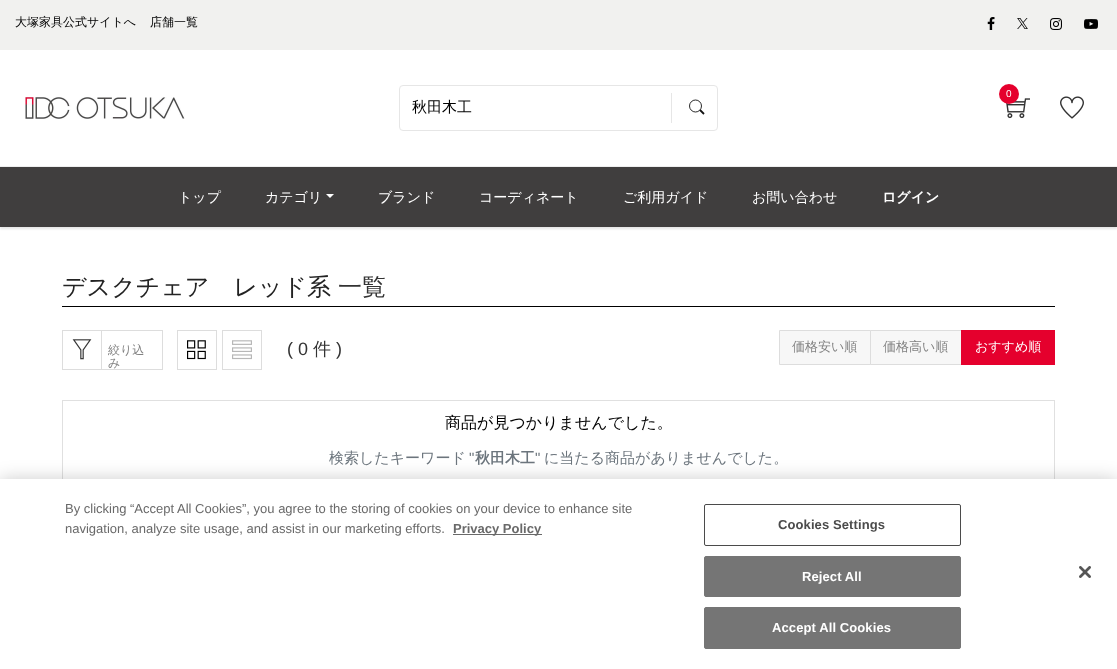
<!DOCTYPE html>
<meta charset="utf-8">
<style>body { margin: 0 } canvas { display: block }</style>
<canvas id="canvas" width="1117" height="669"></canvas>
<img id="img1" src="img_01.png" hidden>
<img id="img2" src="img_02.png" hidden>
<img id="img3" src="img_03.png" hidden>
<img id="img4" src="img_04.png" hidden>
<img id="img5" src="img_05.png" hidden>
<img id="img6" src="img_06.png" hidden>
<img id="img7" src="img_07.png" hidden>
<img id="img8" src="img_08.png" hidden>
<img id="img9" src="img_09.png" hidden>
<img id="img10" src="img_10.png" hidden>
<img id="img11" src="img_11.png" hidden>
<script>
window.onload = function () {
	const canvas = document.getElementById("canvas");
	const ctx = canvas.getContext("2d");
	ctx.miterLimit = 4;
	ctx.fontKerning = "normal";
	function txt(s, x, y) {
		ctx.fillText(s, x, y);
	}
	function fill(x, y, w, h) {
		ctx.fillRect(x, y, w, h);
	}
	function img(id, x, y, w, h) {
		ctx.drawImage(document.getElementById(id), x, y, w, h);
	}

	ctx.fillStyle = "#FFFFFF";
	fill(0, 0, 1117, 669);
	ctx.fillStyle = "#F1F1EF";
	fill(0, 0, 1117, 50);
	img("img1", 987, 17, 8, 13);
	img("img2", 1017, 18, 11, 11);
	img("img3", 1050, 18, 12, 12);
	img("img4", 1084, 19, 14, 10);
	img("img5", 1006, 98, 24, 21);
	ctx.fillStyle = "#E5002D";
	ctx.beginPath();
	ctx.arc(1009, 94, 10, 0, Math.PI * 2);
	ctx.fill();
	img("img6", 1060, 96, 24, 23);
	img("img7", 25, 97, 160, 22);
	ctx.beginPath();
	ctx.roundRect(399.5, 85.5, 318, 45, 3.5);
	ctx.strokeStyle = "#E6E6E6";
	ctx.stroke();
	ctx.fillStyle = "#E6E6E6";
	fill(671, 93, 1, 30);
	ctx.beginPath();
	ctx.arc(695.5, 106, 6, 0, Math.PI * 2);
	ctx.strokeStyle = "#111111";
	ctx.lineWidth = 0.9;
	ctx.stroke();
	ctx.beginPath();
	ctx.moveTo(700, 110);
	ctx.lineTo(704, 114);
	ctx.lineWidth = 1.8;
	ctx.stroke();
	ctx.fillStyle = "rgba(0, 0, 0, 0.1)";
	ctx.filter = "blur(1px)";
	ctx.beginPath();
	ctx.rect(0, 168, 1117, 61);
	ctx.fill();
	ctx.filter = "none";
	ctx.fillStyle = "#403E3E";
	fill(0, 167, 1117, 60);
	ctx.fillStyle = "#EEEEEE";
	fill(0, 166, 1117, 1);
	ctx.fillStyle = "#FFFFFF";
	ctx.beginPath();
	ctx.moveTo(326, 194);
	ctx.lineTo(334, 194);
	ctx.lineTo(330, 198);
	ctx.closePath();
	ctx.fill();
	ctx.fillStyle = "#000000";
	fill(62, 306, 993, 1);
	ctx.strokeStyle = "#DDDDDD";
	ctx.lineWidth = 1;
	ctx.strokeRect(62.5, 330.5, 39, 39);
	img("img8", 72, 339, 20, 21);
	ctx.strokeRect(101.5, 330.5, 61, 39);
	ctx.strokeRect(177.5, 330.5, 39, 39);
	img("img9", 187, 340, 19, 20);
	ctx.strokeRect(222.5, 330.5, 39, 39);
	img("img10", 232, 340, 20, 20);
	ctx.fillStyle = "#F7F7F7";
	ctx.beginPath();
	ctx.rect(779.5, 330.5, 91, 34);
	ctx.fill();
	ctx.stroke();
	ctx.beginPath();
	ctx.rect(870.5, 330.5, 91, 34);
	ctx.fill();
	ctx.stroke();
	ctx.fillStyle = "#E5002D";
	fill(961, 330, 94, 35);
	ctx.strokeStyle = "#E0E0E0";
	ctx.strokeRect(62.5, 400.5, 992, 86);
	ctx.fillStyle = "rgba(0, 0, 0, 0.2)";
	ctx.filter = "blur(9px)";
	ctx.beginPath();
	ctx.rect(0, 479, 1117, 190);
	ctx.fill();
	ctx.filter = "none";
	ctx.fillStyle = "#FFFFFF";
	fill(0, 479, 1117, 190);
	ctx.fillStyle = "#696969";
	fill(453, 534, 89, 1);
	ctx.beginPath();
	ctx.roundRect(704.5, 504.5, 256, 41, 1.5);
	ctx.strokeStyle = "#4B4B4B";
	ctx.stroke();
	ctx.fillStyle = "#757575";
	ctx.beginPath();
	ctx.roundRect(704.5, 556.5, 256, 40, 1.5);
	ctx.fill();
	ctx.strokeStyle = "#757575";
	ctx.stroke();
	ctx.beginPath();
	ctx.roundRect(704.5, 607.5, 256, 41, 1.5);
	ctx.fill();
	ctx.stroke();
	img("img11", 1079, 566, 12, 12);
	ctx.font = "500 12px WenQuanYi Zen Hei";
	ctx.fillStyle = "#000000";
	txt("大塚家具公式サイトへ", 15, 26);
	txt("店舗一覧", 150, 26);
	ctx.font = "10px Liberation Sans";
	ctx.fillStyle = "#FFFFFF";
	txt("0", 1006, 97);
	ctx.font = "500 15px WenQuanYi Zen Hei";
	ctx.fillStyle = "#000000";
	txt("秋田木工", 412, 112);
	ctx.font = "500 14px WenQuanYi Zen Hei";
	ctx.fillStyle = "#FFFFFF";
	txt("トップ", 178, 202);
	txt("カテゴリ", 265, 202);
	txt("ブランド", 378, 202);
	txt("コーディネート", 479, 202);
	txt("ご利用ガイド", 623, 202);
	txt("お問い合わせ", 752, 202);
	ctx.font = "bold 14px WenQuanYi Zen Hei";
	txt("ログイン", 882, 202);
	ctx.font = "500 24px WenQuanYi Zen Hei";
	ctx.fillStyle = "#232323";
	txt("デスクチェア　レッド系", 62, 295);
	ctx.fillStyle = "#333333";
	txt("一覧", 338, 295);
	ctx.font = "500 12px WenQuanYi Zen Hei";
	ctx.fillStyle = "#828282";
	txt("絞り込", 108, 354);
	txt("み", 108, 367);
	ctx.font = "18px Liberation Sans";
	ctx.fillStyle = "#333333";
	txt("( 0", 287, 355);
	ctx.font = "500 18px WenQuanYi Zen Hei";
	txt("件", 313, 355);
	ctx.font = "18px Liberation Sans";
	txt(")", 336, 355);
	ctx.font = "500 13px WenQuanYi Zen Hei";
	ctx.fillStyle = "#828282";
	txt("価格安い順", 792, 351);
	txt("価格高い順", 883, 351);
	ctx.fillStyle = "#FFFFFF";
	txt("おすすめ順", 975, 351);
	ctx.font = "500 16px WenQuanYi Zen Hei";
	ctx.fillStyle = "#000000";
	txt("商品が見つかりませんでした。", 445, 428);
	ctx.font = "500 15px WenQuanYi Zen Hei";
	ctx.fillStyle = "#6C757D";
	txt("検索したキーワード", 329, 463);
	ctx.font = "15px Liberation Sans";
	txt("\"", 469, 463);
	ctx.font = "bold 15px WenQuanYi Zen Hei";
	txt("秋田木工", 475, 463);
	ctx.font = "15px Liberation Sans";
	txt("\"", 535, 463);
	ctx.font = "500 15px WenQuanYi Zen Hei";
	txt("に当たる商品がありませんでした。", 544, 463);
	ctx.font = "13px Liberation Sans";
	ctx.fillStyle = "#696969";
	txt("By clicking “Accept All Cookies”, you agree to the storing of cookies on your device to enhance site", 65, 513);
	txt("navigation, analyze site usage, and assist in our marketing efforts.", 65, 533);
	ctx.font = "bold 13px Liberation Sans";
	txt("Privacy Policy", 453, 533);
	ctx.letterSpacing = "0.1px";
	ctx.fillStyle = "#4B4B4B";
	txt("Cookies Settings", 778, 529);
	ctx.fillStyle = "#FFFFFF";
	txt("Reject All", 802, 581);
	txt("Accept All Cookies", 772, 632);
};
</script>
